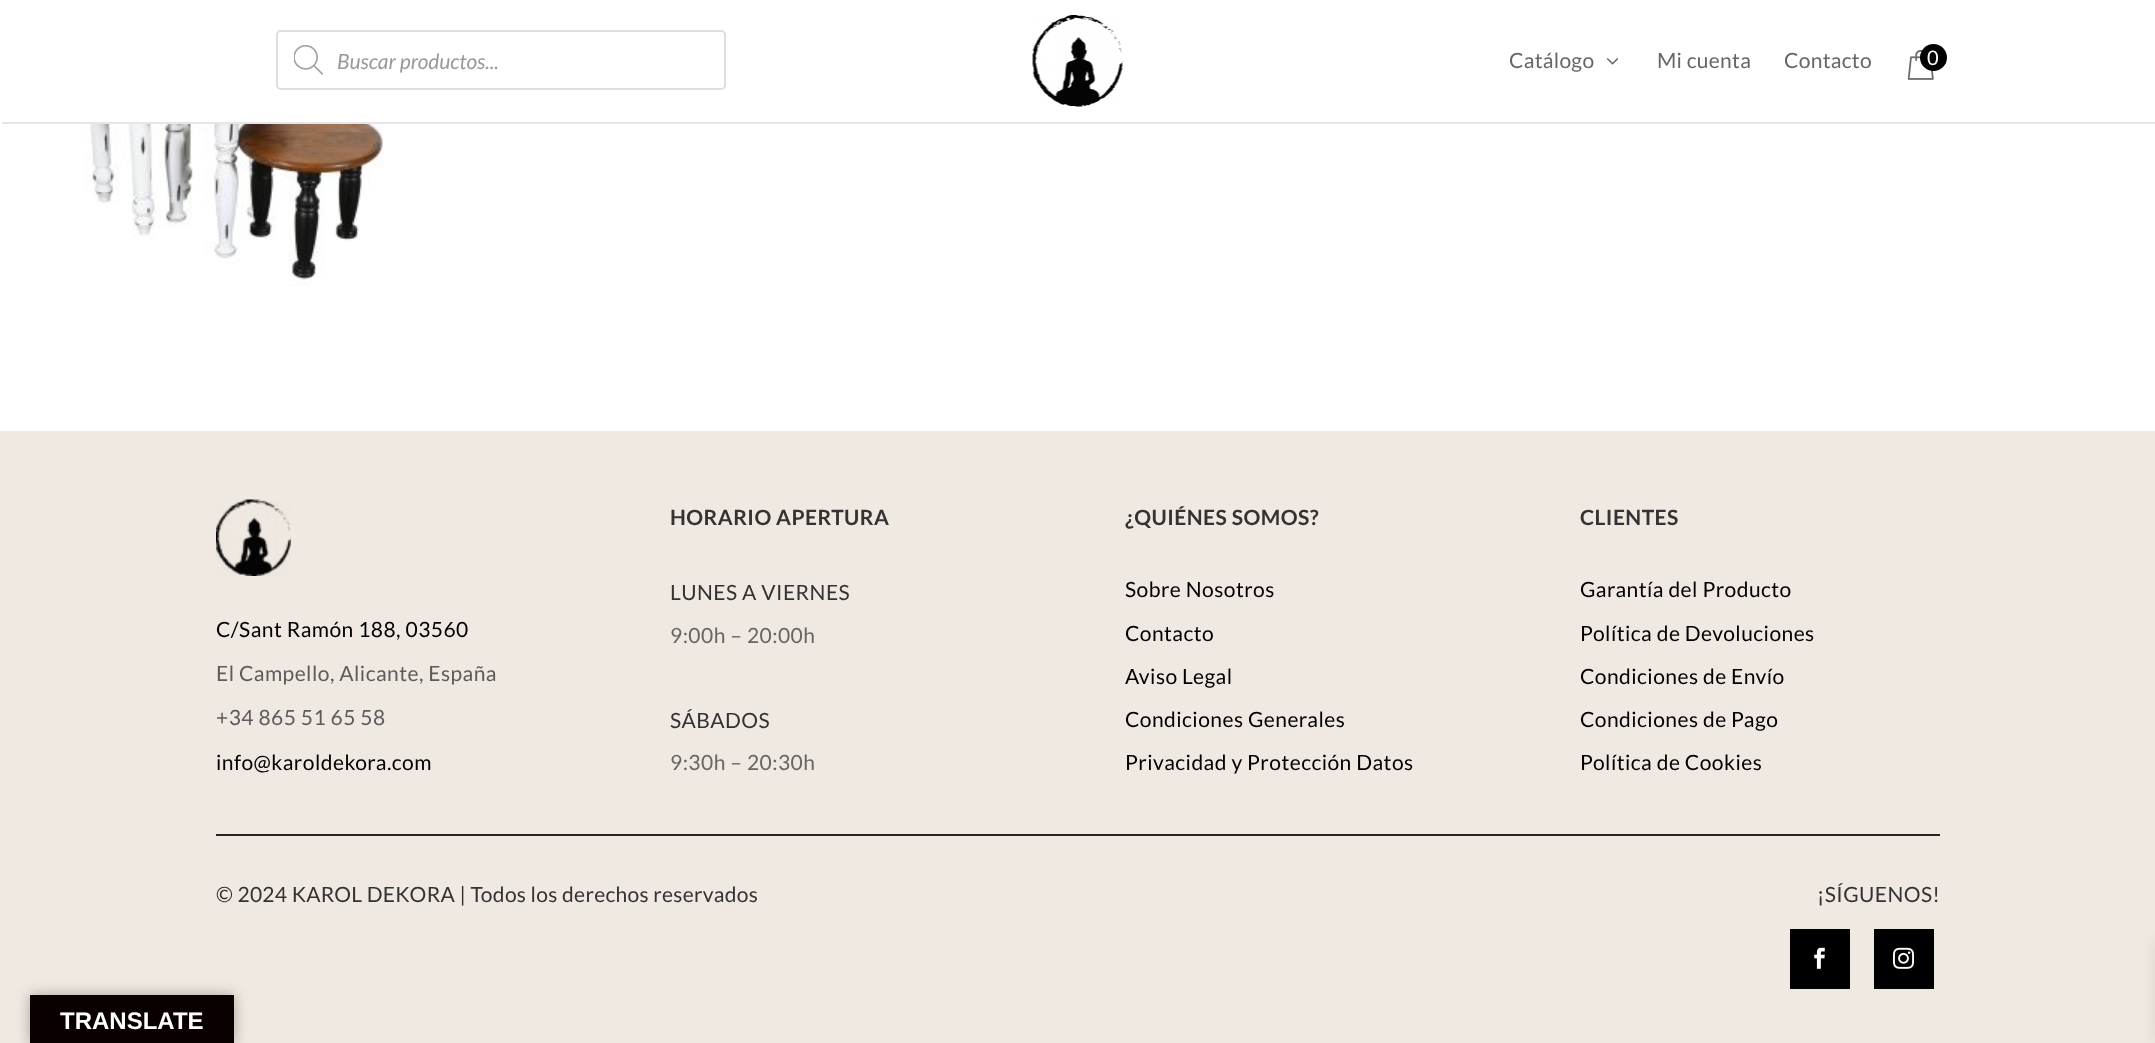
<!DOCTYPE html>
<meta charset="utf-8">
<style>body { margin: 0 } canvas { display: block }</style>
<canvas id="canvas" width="2155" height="1043"></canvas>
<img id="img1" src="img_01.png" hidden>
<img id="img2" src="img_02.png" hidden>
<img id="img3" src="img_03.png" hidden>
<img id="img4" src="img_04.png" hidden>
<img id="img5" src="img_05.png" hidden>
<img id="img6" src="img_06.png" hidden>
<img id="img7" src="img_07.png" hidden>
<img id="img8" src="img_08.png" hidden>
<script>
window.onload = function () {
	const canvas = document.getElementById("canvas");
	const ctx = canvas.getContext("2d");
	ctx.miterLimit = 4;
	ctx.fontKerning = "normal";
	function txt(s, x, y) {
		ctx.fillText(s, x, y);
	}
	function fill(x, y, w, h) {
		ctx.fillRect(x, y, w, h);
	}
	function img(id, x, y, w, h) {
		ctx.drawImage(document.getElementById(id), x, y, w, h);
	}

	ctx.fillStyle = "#FFFFFF";
	fill(0, 0, 2155, 1043);
	ctx.fillStyle = "#E6E6E6";
	fill(2, 122, 2153, 2);
	ctx.beginPath();
	ctx.roundRect(277, 31, 448, 58, 4);
	ctx.strokeStyle = "#DDDDDD";
	ctx.lineWidth = 2;
	ctx.stroke();
	img("img1", 294, 45, 30, 30);
	img("img2", 1032, 15, 92, 92);
	img("img3", 1607, 58, 11, 7);
	img("img4", 1907, 49, 27, 31);
	ctx.fillStyle = "#000000";
	ctx.beginPath();
	ctx.arc(1933.5, 57.5, 13.5, 0, Math.PI * 2);
	ctx.fill();
	img("img5", 60, 124, 324, 162);
	ctx.fillStyle = "#EFE9E1";
	fill(0, 431, 2155, 612);
	ctx.fillStyle = "#242424";
	fill(216, 834, 1724, 2);
	img("img6", 216, 499, 75, 77);
	ctx.fillStyle = "#000000";
	fill(1790, 929, 60, 60);
	img("img7", 1814, 947, 11, 22);
	fill(1874, 929, 60, 60);
	img("img8", 1893, 947, 21, 22);
	ctx.fillStyle = "rgba(0, 0, 0, 0.3)";
	ctx.filter = "blur(7px)";
	ctx.beginPath();
	ctx.rect(30, 995, 204, 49);
	ctx.fill();
	ctx.filter = "none";
	ctx.fillStyle = "#0A0000";
	fill(30, 995, 204, 48);
	ctx.fillStyle = "rgba(0, 0, 0, 0.1)";
	ctx.filter = "blur(7.5px)";
	ctx.beginPath();
	ctx.rect(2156, 941, 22, 102);
	ctx.fill();
	ctx.filter = "none";
	ctx.font = "italic 21px Lato";
	ctx.fillStyle = "#999999";
	txt("Buscar productos...", 337, 69);
	ctx.letterSpacing = "0.3px";
	ctx.font = "21px Lato";
	ctx.fillStyle = "#666666";
	txt("Catálogo", 1509, 68);
	txt("Mi cuenta", 1657, 68);
	txt("Contacto", 1784, 68);
	ctx.letterSpacing = "0px";
	ctx.font = "20px Lato";
	ctx.fillStyle = "#FFFFFF";
	txt("0", 1927, 65);
	ctx.letterSpacing = "0.45px";
	ctx.font = "21px Lato";
	ctx.fillStyle = "#000000";
	txt("C/Sant Ramón 188, 03560", 216, 637);
	ctx.fillStyle = "#5C5C5C";
	txt("El Campello, Alicante, España", 216, 681);
	txt("+34 865 51 65 58", 216, 725);
	ctx.fillStyle = "#000000";
	txt("info@karoldekora.com", 216, 770);
	ctx.font = "bold 21px Lato";
	ctx.fillStyle = "#333333";
	txt("HORARIO APERTURA", 670, 525);
	ctx.font = "21px Lato";
	txt("LUNES A VIERNES", 670, 600);
	ctx.fillStyle = "#666666";
	txt("9:00h – 20:00h", 670, 643);
	ctx.fillStyle = "#333333";
	txt("SÁBADOS", 670, 728);
	ctx.fillStyle = "#666666";
	txt("9:30h – 20:30h", 670, 770);
	ctx.font = "bold 21px Lato";
	ctx.fillStyle = "#333333";
	txt("¿QUIÉNES SOMOS?", 1125, 525);
	ctx.font = "21px Lato";
	ctx.fillStyle = "#000000";
	txt("Sobre Nosotros", 1125, 597);
	txt("Contacto", 1125, 641);
	txt("Aviso Legal", 1125, 684);
	txt("Condiciones Generales", 1125, 727);
	txt("Privacidad y Protección Datos", 1125, 770);
	ctx.font = "bold 21px Lato";
	ctx.fillStyle = "#333333";
	txt("CLIENTES", 1580, 525);
	ctx.font = "21px Lato";
	ctx.fillStyle = "#000000";
	txt("Garantía del Producto", 1580, 597);
	txt("Política de Devoluciones", 1580, 641);
	txt("Condiciones de Envío", 1580, 684);
	txt("Condiciones de Pago", 1580, 727);
	txt("Política de Cookies", 1580, 770);
	ctx.letterSpacing = "0.3px";
	ctx.fillStyle = "#333333";
	txt("© 2024 KAROL DEKORA | Todos los derechos reservados", 216, 902);
	ctx.letterSpacing = "0.45px";
	txt("¡SÍGUENOS!", 1817, 902);
	ctx.letterSpacing = "0px";
	ctx.font = "bold 24px Liberation Sans";
	ctx.fillStyle = "#FFFFFF";
	txt("TRANSLATE", 60, 1029);
};
</script>
